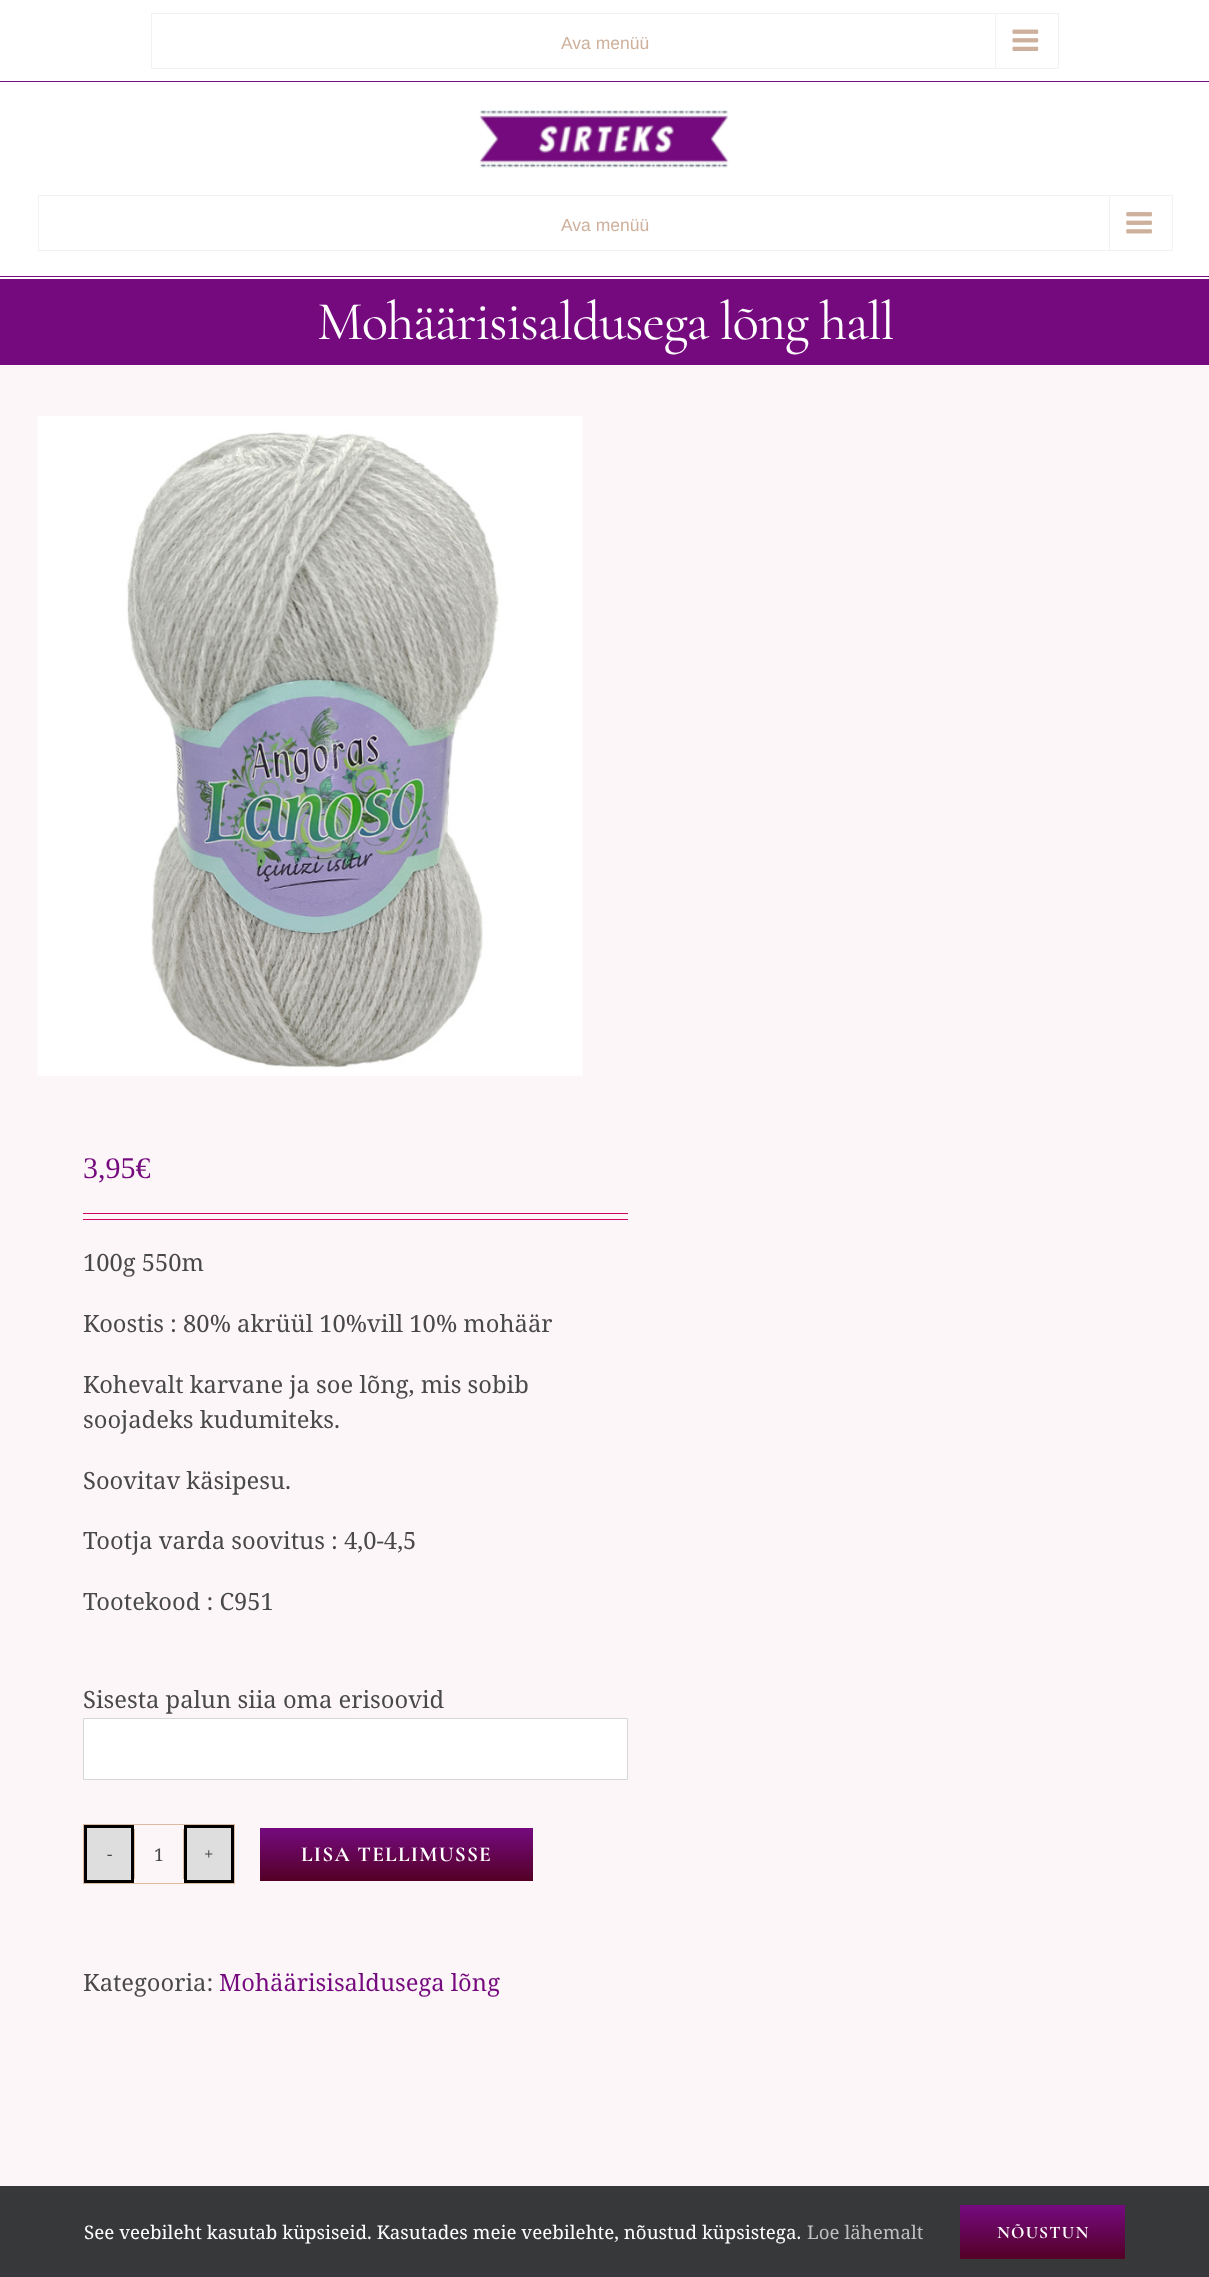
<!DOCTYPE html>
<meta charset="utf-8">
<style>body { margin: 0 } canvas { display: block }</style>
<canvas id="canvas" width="1209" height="2277"></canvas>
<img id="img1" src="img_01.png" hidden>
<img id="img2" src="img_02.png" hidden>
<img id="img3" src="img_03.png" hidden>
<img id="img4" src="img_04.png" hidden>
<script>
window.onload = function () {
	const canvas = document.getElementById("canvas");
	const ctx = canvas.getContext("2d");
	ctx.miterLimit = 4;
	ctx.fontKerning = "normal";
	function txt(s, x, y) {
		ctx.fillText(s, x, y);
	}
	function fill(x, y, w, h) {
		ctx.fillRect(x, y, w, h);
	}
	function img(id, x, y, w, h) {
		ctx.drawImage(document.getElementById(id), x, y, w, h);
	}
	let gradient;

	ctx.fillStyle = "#FDF6F8";
	fill(0, 0, 1209, 2277);
	ctx.fillStyle = "#FFFFFF";
	fill(0, 0, 1209, 278);
	ctx.fillStyle = "#760C80";
	fill(0, 81, 1209, 1);
	ctx.strokeStyle = "#F2F2F5";
	ctx.strokeRect(151.5, 13.5, 907, 55);
	ctx.fillStyle = "#F2F2F5";
	fill(995, 14, 1, 54);
	img("img1", 1012, 29, 27, 22);
	ctx.fillStyle = "#760C80";
	fill(0, 276, 1209, 1);
	img("img2", 479, 110, 250, 58);
	ctx.strokeRect(38.5, 195.5, 1134, 55);
	ctx.fillStyle = "#F2F2F5";
	fill(1109, 196, 1, 54);
	img("img3", 1126, 212, 26, 22);
	ctx.fillStyle = "#750A7F";
	fill(0, 279, 1209, 86);
	ctx.fillStyle = "#FFFFFF";
	fill(0, 278, 1209, 1);
	fill(0, 365, 1209, 1);
	img("img4", 37, 416, 546, 660);
	ctx.fillStyle = "#D20260";
	fill(83, 1213, 545, 1);
	fill(83, 1219, 545, 1);
	ctx.fillStyle = "#FFFFFF";
	ctx.beginPath();
	ctx.rect(83.5, 1718.5, 544, 61);
	ctx.fill();
	ctx.strokeStyle = "#D5D7DC";
	ctx.stroke();
	ctx.strokeStyle = "#DCBAA1";
	ctx.strokeRect(83.5, 1824.5, 151, 59);
	ctx.fillStyle = "#DEDEDE";
	ctx.beginPath();
	ctx.rect(85.5, 1826.5, 47, 55);
	ctx.fill();
	ctx.strokeStyle = "#000000";
	ctx.lineWidth = 3;
	ctx.stroke();
	ctx.fillStyle = "#DCBAA1";
	fill(183, 1829, 1, 50);
	fill(134, 1829, 1, 50);
	ctx.fillStyle = "#DEDEDE";
	ctx.beginPath();
	ctx.rect(185.5, 1826.5, 47, 55);
	ctx.fill();
	ctx.stroke();
	gradient = ctx.createLinearGradient(396, 1828, 396, 1881);
	gradient.addColorStop(0, "#750A7F");
	gradient.addColorStop(1, "#540026");
	ctx.fillStyle = gradient;
	fill(260, 1828, 273, 53);
	ctx.fillStyle = "#363839";
	fill(0, 2186, 1209, 91);
	gradient = ctx.createLinearGradient(1043, 2205, 1043, 2259);
	gradient.addColorStop(0, "#750A7F");
	gradient.addColorStop(1, "#540026");
	ctx.fillStyle = gradient;
	fill(960, 2205, 165, 54);
	ctx.font = "17.5px Liberation Sans";
	ctx.fillStyle = "#CEB19C";
	txt("Ava menüü", 561, 49);
	txt("Ava menüü", 561, 231);
	ctx.letterSpacing = "-1.25px";
	ctx.font = "55px Cormorant Garamond";
	ctx.fillStyle = "#FFFFFF";
	txt("Mohäärisisaldusega lõng hall", 317, 339);
	ctx.letterSpacing = "0px";
	ctx.font = "30px Liberation Serif";
	ctx.fillStyle = "#750A7F";
	txt("3,95€", 83, 1178);
	ctx.font = "23.75px Noto Serif";
	ctx.fillStyle = "#494949";
	txt("100g 550m", 83, 1271);
	txt("Koostis : 80% akrüül 10%vill 10% mohäär", 83, 1332);
	txt("Kohevalt karvane ja soe lõng, mis sobib", 83, 1393);
	txt("soojadeks kudumiteks.", 83, 1428);
	txt("Soovitav käsipesu.", 83, 1489);
	txt("Tootja varda soovitus : 4,0-4,5", 83, 1549);
	txt("Tootekood : C951", 83, 1610);
	txt("Sisesta palun siia oma erisoovid", 83, 1708);
	ctx.font = "17px Noto Serif";
	txt("-", 107, 1860);
	ctx.font = "17.5px Noto Serif";
	txt("1", 154, 1861);
	ctx.font = "17px Noto Serif";
	txt("+", 204, 1860);
	ctx.letterSpacing = "1.25px";
	ctx.font = "bold 21.25px Cormorant Garamond";
	ctx.fillStyle = "#FFFFFF";
	txt("LISA TELLIMUSSE", 301, 1861);
	ctx.letterSpacing = "0px";
	ctx.font = "23.75px Noto Serif";
	ctx.fillStyle = "#494949";
	txt("Kategooria:", 83, 1991);
	ctx.fillStyle = "#750A7F";
	txt("Mohäärisisaldusega lõng", 219, 1991);
	ctx.font = "18.75px Noto Serif";
	ctx.fillStyle = "#FFFFFF";
	txt("See veebileht kasutab küpsiseid. Kasutades meie veebilehte, nõustud küpsistega.", 84, 2239);
	ctx.fillStyle = "#BFBFBF";
	txt("Loe lähemalt", 807, 2239);
	ctx.letterSpacing = "1.25px";
	ctx.font = "bold 17.5px Cormorant Garamond";
	ctx.fillStyle = "#FFFFFF";
	txt("NÕUSTUN", 997, 2238);
};
</script>
